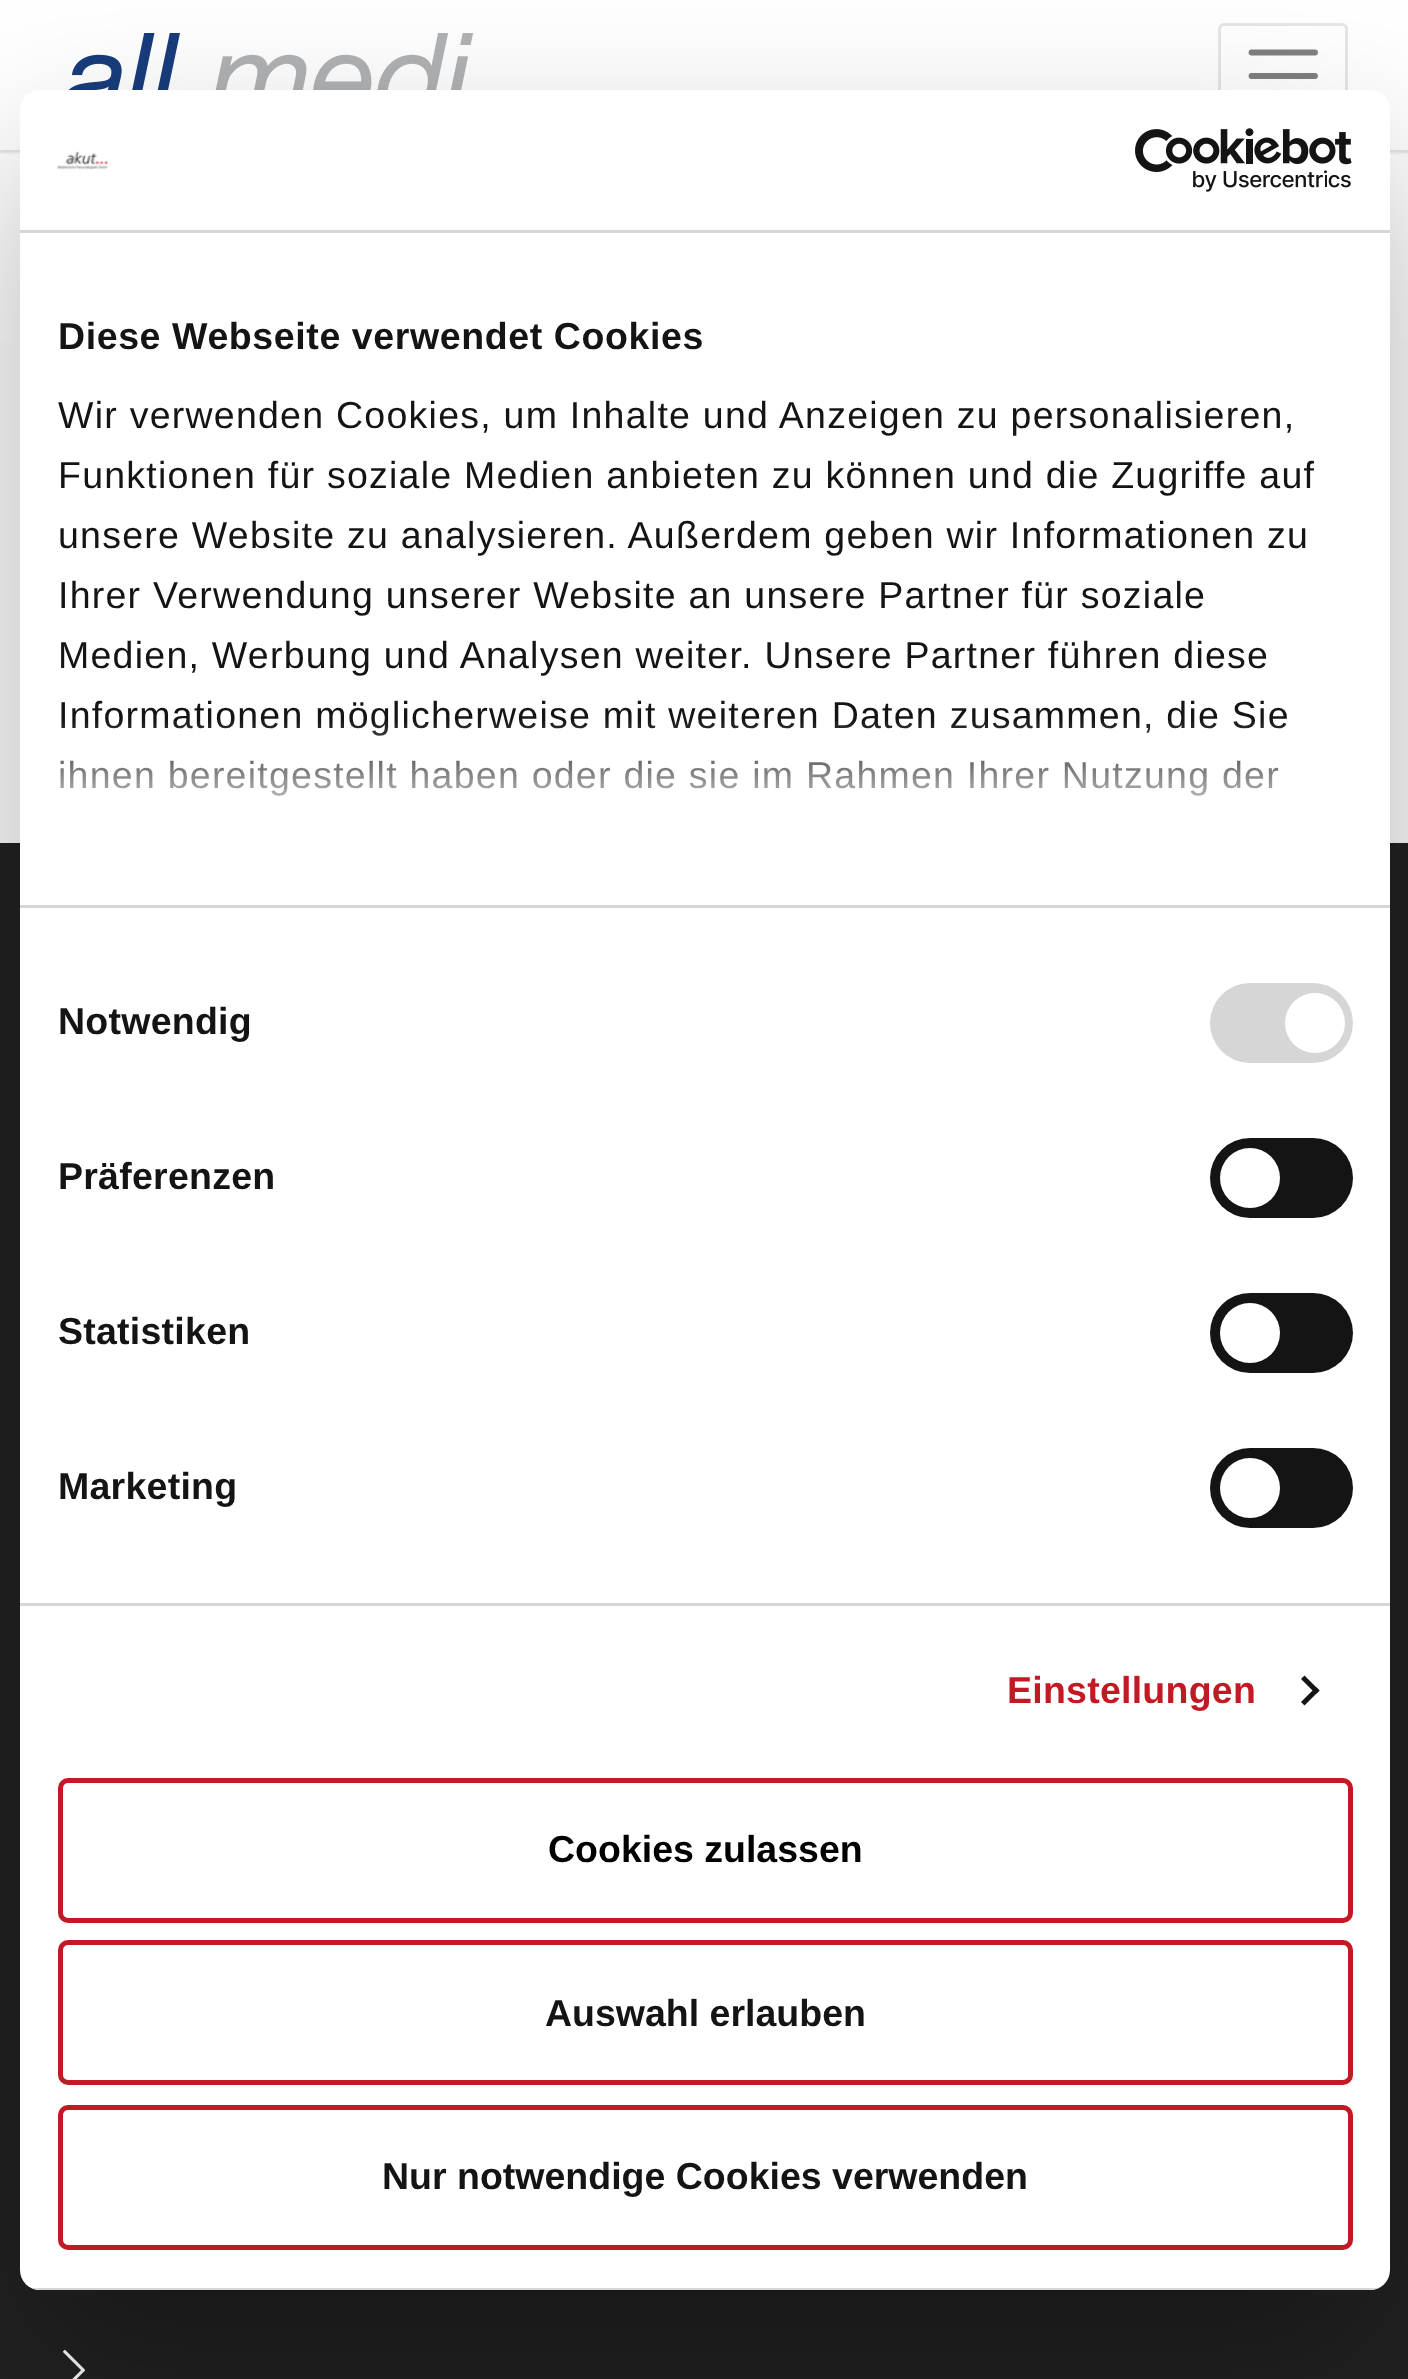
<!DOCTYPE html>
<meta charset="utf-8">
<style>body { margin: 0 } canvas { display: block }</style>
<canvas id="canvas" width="1408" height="2379"></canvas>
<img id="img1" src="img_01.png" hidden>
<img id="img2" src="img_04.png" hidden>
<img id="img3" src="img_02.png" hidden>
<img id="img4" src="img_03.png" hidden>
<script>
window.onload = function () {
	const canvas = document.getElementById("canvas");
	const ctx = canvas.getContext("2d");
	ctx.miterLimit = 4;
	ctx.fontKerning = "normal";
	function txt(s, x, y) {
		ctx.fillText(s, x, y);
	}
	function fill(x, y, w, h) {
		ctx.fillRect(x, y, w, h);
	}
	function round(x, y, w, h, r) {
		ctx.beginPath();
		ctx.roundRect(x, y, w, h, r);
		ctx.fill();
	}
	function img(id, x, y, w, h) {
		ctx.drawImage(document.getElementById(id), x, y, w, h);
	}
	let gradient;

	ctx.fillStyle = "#FFFFFF";
	fill(0, 0, 1408, 2379);
	ctx.fillStyle = "rgba(0, 0, 0, 0.1)";
	ctx.filter = "blur(1px)";
	ctx.beginPath();
	ctx.rect(0, 3, 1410, 150);
	ctx.fill();
	ctx.filter = "none";
	ctx.fillStyle = "#FFFFFF";
	fill(0, 2, 1408, 148);
	img("img1", 68, 33, 405, 57);
	ctx.beginPath();
	ctx.roundRect(1219.5, 24.5, 127, 102, 4.5);
	ctx.strokeStyle = "#E6E6E6";
	ctx.lineWidth = 3;
	ctx.stroke();
	ctx.beginPath();
	ctx.moveTo(1251.5, 52.5);
	ctx.lineTo(1315, 52.5);
	ctx.moveTo(1251.5, 76);
	ctx.lineTo(1315, 76);
	ctx.moveTo(1251.5, 99);
	ctx.lineTo(1315, 99);
	ctx.strokeStyle = "#808080";
	ctx.lineWidth = 5.8;
	ctx.lineCap = "round";
	ctx.stroke();
	ctx.fillStyle = "#222222";
	fill(0, 843, 1408, 1536);
	img("img2", 63, 2349, 23, 30);
	ctx.fillStyle = "rgba(0, 0, 0, 0.3)";
	ctx.filter = "blur(85px)";
	ctx.beginPath();
	ctx.roundRect(20, 170, 1370, 2200, 20);
	ctx.fill();
	ctx.filter = "none";
	ctx.fillStyle = "#FFFFFF";
	round(20, 90, 1370, 2200, 20);
	ctx.fillStyle = "#D6D6D6";
	fill(20, 230, 1370, 3);
	img("img3", 57, 151, 51, 19);
	img("img4", 1135, 128, 217, 64);
	fill(20, 905, 1370, 3);
	fill(20, 1603, 1370, 3);
	round(1210, 983, 143, 80, 40);
	ctx.fillStyle = "#FFFFFF";
	ctx.beginPath();
	ctx.arc(1315, 1023, 30, 0, Math.PI * 2);
	ctx.fill();
	ctx.fillStyle = "#141414";
	round(1210, 1138, 143, 80, 40);
	ctx.fillStyle = "#FFFFFF";
	ctx.beginPath();
	ctx.arc(1250, 1178, 30, 0, Math.PI * 2);
	ctx.fill();
	ctx.fillStyle = "#141414";
	round(1210, 1293, 143, 80, 40);
	ctx.fillStyle = "#FFFFFF";
	ctx.beginPath();
	ctx.arc(1250, 1333, 30, 0, Math.PI * 2);
	ctx.fill();
	ctx.fillStyle = "#141414";
	round(1210, 1448, 143, 80, 40);
	ctx.fillStyle = "#FFFFFF";
	ctx.beginPath();
	ctx.arc(1250, 1488, 30, 0, Math.PI * 2);
	ctx.fill();
	ctx.fillStyle = "#141414";
	ctx.beginPath();
	ctx.moveTo(1304.5, 1675.5);
	ctx.lineTo(1319.5, 1690.5);
	ctx.lineTo(1316, 1694);
	ctx.lineTo(1301, 1679);
	ctx.closePath();
	ctx.fill();
	ctx.beginPath();
	ctx.moveTo(1316, 1687);
	ctx.lineTo(1319.5, 1690.5);
	ctx.lineTo(1304.5, 1705.5);
	ctx.lineTo(1301, 1702);
	ctx.closePath();
	ctx.fill();
	ctx.save();
	ctx.beginPath();
	ctx.roundRect(20, 90, 1370, 2200, 20);
	ctx.clip();
	ctx.fillStyle = "#D6D6D6";
	fill(31, 2288, 1348, 2);
	ctx.restore();
	ctx.beginPath();
	ctx.roundRect(60.5, 1780.5, 1290, 140, 7.5);
	ctx.strokeStyle = "#C31924";
	ctx.lineWidth = 5;
	ctx.stroke();
	ctx.beginPath();
	ctx.roundRect(60.5, 1942.5, 1290, 140, 7.5);
	ctx.stroke();
	ctx.beginPath();
	ctx.roundRect(60.5, 2107.5, 1290, 140, 7.5);
	ctx.stroke();
	ctx.letterSpacing = "0.6px";
	ctx.font = "bold 37.5px Liberation Sans";
	txt("Diese Webseite verwendet Cookies", 58, 349);
	ctx.letterSpacing = "1.25px";
	ctx.font = "37.5px Liberation Sans";
	txt("Wir verwenden Cookies, um Inhalte und Anzeigen zu personalisieren,", 58, 428);
	txt("Funktionen für soziale Medien anbieten zu können und die Zugriffe auf", 58, 488);
	txt("unsere Website zu analysieren. Außerdem geben wir Informationen zu", 58, 548);
	txt("Ihrer Verwendung unserer Website an unsere Partner für soziale", 58, 608);
	txt("Medien, Werbung und Analysen weiter. Unsere Partner führen diese", 58, 668);
	txt("Informationen möglicherweise mit weiteren Daten zusammen, die Sie", 58, 728);
	txt("ihnen bereitgestellt haben oder die sie im Rahmen Ihrer Nutzung der", 58, 788);
	gradient = ctx.createLinearGradient(689, 906, 689, 718);
	gradient.addColorStop(0, "#FFFFFF");
	gradient.addColorStop(0.5, "rgba(255, 255, 255, 0.8)");
	gradient.addColorStop(1, "rgba(255, 255, 255, 0)");
	ctx.fillStyle = gradient;
	fill(60, 721, 1226, 75);
	ctx.letterSpacing = "0.25px";
	ctx.font = "bold 37.5px Liberation Sans";
	ctx.fillStyle = "#141414";
	txt("Notwendig", 58, 1034);
	txt("Präferenzen", 58, 1189);
	txt("Statistiken", 58, 1344);
	txt("Marketing", 58, 1499);
	ctx.fillStyle = "#C31924";
	txt("Einstellungen", 1007, 1703);
	ctx.letterSpacing = "0px";
	ctx.fillStyle = "#000000";
	txt("Cookies zulassen", 548, 1862);
	ctx.fillStyle = "#141414";
	txt("Auswahl erlauben", 545, 2026);
	txt("Nur notwendige Cookies verwenden", 382, 2189);
};
</script>
